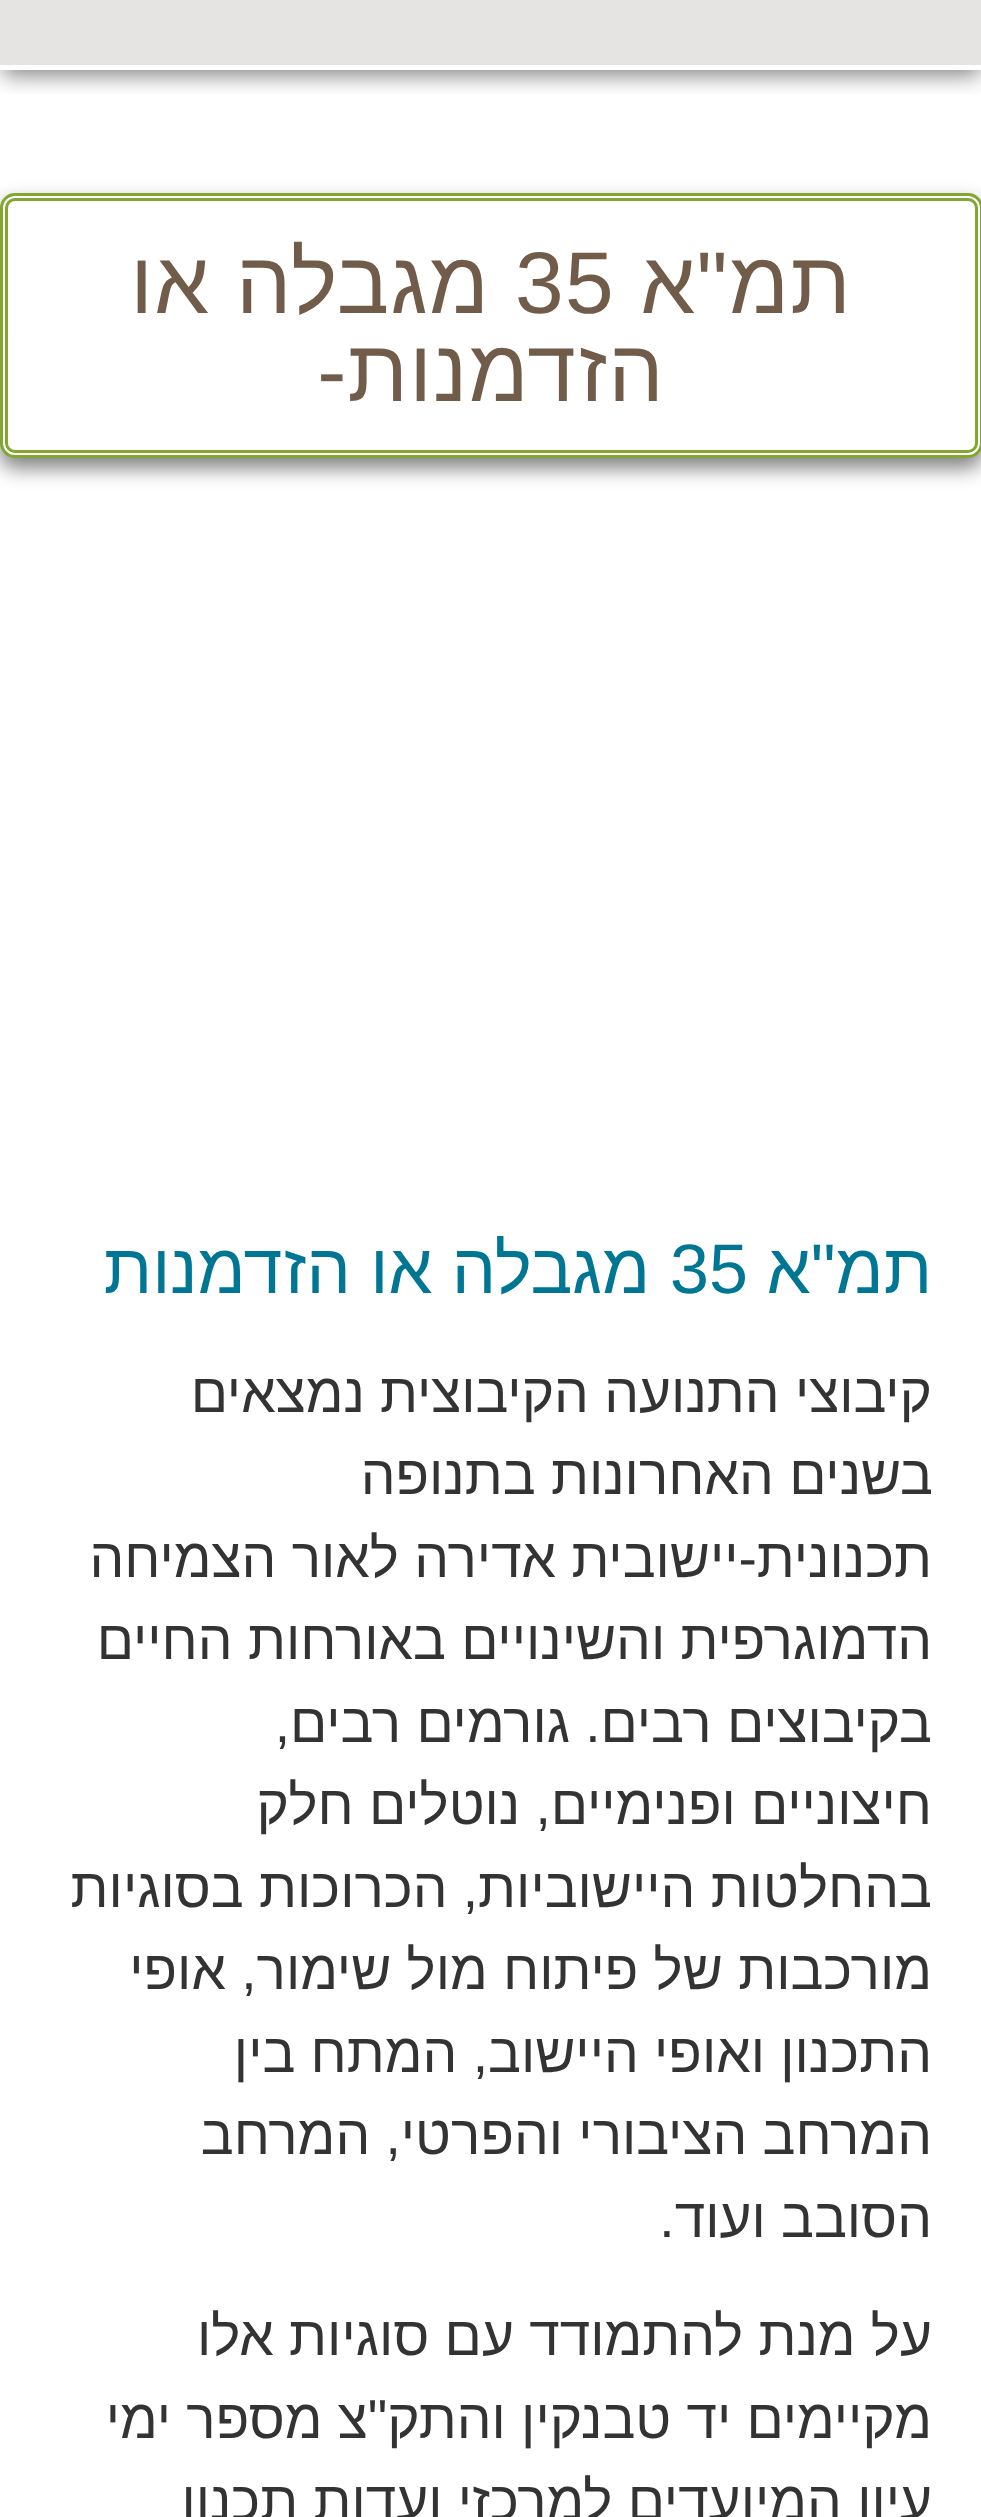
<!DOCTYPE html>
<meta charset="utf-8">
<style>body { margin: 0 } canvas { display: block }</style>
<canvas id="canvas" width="981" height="2517"></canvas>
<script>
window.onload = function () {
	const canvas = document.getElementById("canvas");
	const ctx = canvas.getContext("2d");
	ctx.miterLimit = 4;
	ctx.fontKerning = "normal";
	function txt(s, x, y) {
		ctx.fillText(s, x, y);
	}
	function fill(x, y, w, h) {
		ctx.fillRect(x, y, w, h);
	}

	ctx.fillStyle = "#FFFFFF";
	fill(0, 0, 981, 2517);
	ctx.save();
	ctx.beginPath();
	ctx.rect(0, 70, 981, 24);
	ctx.clip();
	ctx.fillStyle = "rgba(0, 0, 0, 0.5)";
	ctx.filter = "blur(11px)";
	ctx.beginPath();
	ctx.rect(3, 10, 977, 65);
	ctx.fill();
	ctx.filter = "none";
	ctx.restore();
	ctx.fillStyle = "#E6E3E3";
	fill(0, 0, 981, 65);
	ctx.fillStyle = "rgba(0, 0, 0, 0.5)";
	ctx.filter = "blur(10px)";
	ctx.beginPath();
	ctx.roundRect(0, 203, 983, 265, 15);
	ctx.fill();
	ctx.filter = "none";
	ctx.fillStyle = "#FFFFFF";
	ctx.beginPath();
	ctx.roundRect(1.5, 194.5, 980, 262, 13.5);
	ctx.fill();
	ctx.strokeStyle = "#82A630";
	ctx.lineWidth = 3;
	ctx.stroke();
	ctx.beginPath();
	ctx.roundRect(6.5, 199.5, 970, 252, 8.5);
	ctx.stroke();
	ctx.letterSpacing = "1.25px";
	ctx.direction = "rtl";
	ctx.font = "87.5px Liberation Sans";
	ctx.fillStyle = "#715C4A";
	txt("תמ\"א", 852, 313);
	ctx.direction = "ltr";
	txt("35", 515, 313);
	ctx.direction = "rtl";
	txt("מגבלה או", 490, 313);
	txt("הזדמנות-", 665, 401);
	ctx.letterSpacing = "0px";
	ctx.font = "70px Liberation Sans";
	ctx.fillStyle = "#007695";
	txt("תמ\"א", 932, 1293);
	ctx.direction = "ltr";
	txt("35", 670, 1293);
	ctx.direction = "rtl";
	txt("מגבלה או הזדמנות", 650, 1293);
	ctx.font = "55px Liberation Sans";
	ctx.fillStyle = "#333333";
	txt("קיבוצי התנועה הקיבוצית נמצאים", 932, 1412);
	txt("בשנים האחרונות בתנופה", 933, 1494);
	txt("תכנונית-יישובית אדירה לאור הצמיחה", 932, 1577);
	txt("הדמוגרפית והשינויים באורחות החיים", 932, 1659);
	txt("בקיבוצים רבים. גורמים רבים,", 932, 1742);
	txt("חיצוניים ופנימיים, נוטלים חלק", 932, 1824);
	txt("בהחלטות היישוביות, הכרוכות בסוגיות", 932, 1907);
	txt("מורכבות של פיתוח מול שימור, אופי", 932, 1989);
	txt("התכנון ואופי היישוב, המתח בין", 932, 2072);
	txt("המרחב הציבורי והפרטי, המרחב", 932, 2154);
	txt("הסובב ועוד.", 932, 2237);
	txt("על מנת להתמודד עם סוגיות אלו", 932, 2355);
	txt("מקיימים יד טבנקין והתק\"צ מספר ימי", 932, 2438);
	txt("עיון המיועדים למרכזי ועדות תכנון", 932, 2520);
};
</script>
